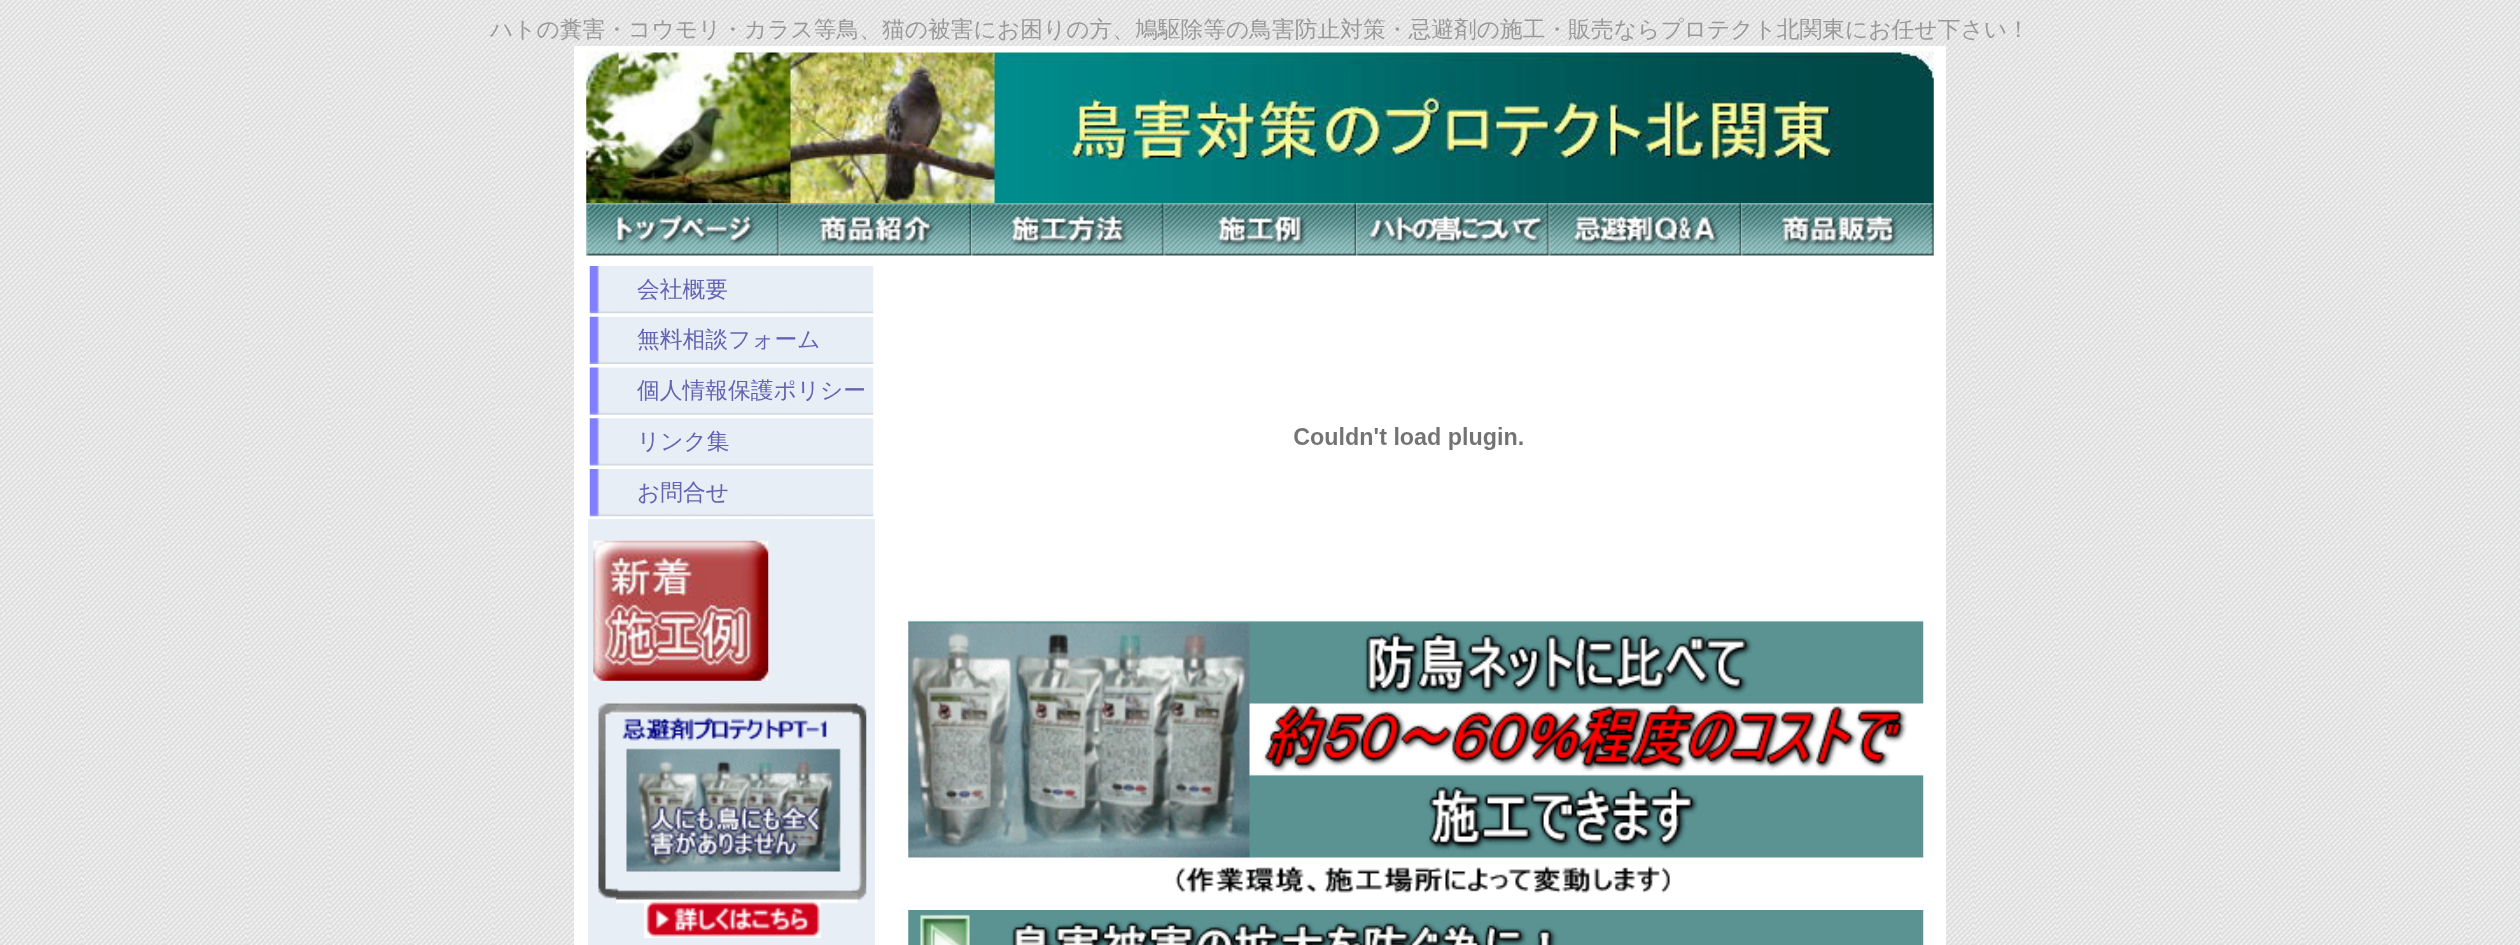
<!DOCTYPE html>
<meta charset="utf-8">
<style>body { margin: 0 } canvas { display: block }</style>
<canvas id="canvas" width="2520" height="945"></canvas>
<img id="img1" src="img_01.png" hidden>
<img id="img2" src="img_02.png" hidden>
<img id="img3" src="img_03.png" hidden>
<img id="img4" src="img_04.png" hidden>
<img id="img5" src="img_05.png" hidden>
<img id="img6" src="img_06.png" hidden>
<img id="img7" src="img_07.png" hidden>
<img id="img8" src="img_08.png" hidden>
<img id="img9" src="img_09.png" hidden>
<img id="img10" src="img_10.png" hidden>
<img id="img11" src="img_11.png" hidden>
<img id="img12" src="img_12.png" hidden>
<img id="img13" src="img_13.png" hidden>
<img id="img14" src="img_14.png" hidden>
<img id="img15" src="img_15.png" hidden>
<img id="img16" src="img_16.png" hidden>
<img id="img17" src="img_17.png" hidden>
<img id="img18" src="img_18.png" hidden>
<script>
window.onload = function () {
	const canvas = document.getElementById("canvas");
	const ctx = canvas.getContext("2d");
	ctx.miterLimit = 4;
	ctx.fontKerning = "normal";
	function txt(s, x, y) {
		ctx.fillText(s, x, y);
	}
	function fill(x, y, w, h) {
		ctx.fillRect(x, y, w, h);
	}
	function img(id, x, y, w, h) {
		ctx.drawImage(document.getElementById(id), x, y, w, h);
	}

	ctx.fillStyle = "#FFFFFF";
	fill(0, 0, 2520, 945);
	img("img1", 0, 0, 2520, 945);
	fill(574, 46, 1372, 899);
	img("img2", 586, 50, 1348, 153);
	img("img3", 586, 203, 193, 53);
	img("img4", 778, 203, 194, 53);
	img("img5", 971, 203, 193, 53);
	img("img6", 1163, 203, 194, 53);
	img("img7", 1356, 203, 193, 53);
	img("img8", 1548, 203, 194, 53);
	img("img9", 1741, 203, 193, 53);
	img("img10", 589, 266, 285, 48);
	img("img11", 589, 316, 285, 48);
	img("img12", 589, 367, 285, 48);
	img("img13", 589, 418, 285, 48);
	img("img10", 589, 469, 285, 48);
	ctx.fillStyle = "#E7EEF6";
	fill(588, 519, 287, 426);
	img("img14", 593, 540, 176, 141);
	img("img15", 598, 703, 269, 235);
	img("img16", 1294, 427, 229, 23);
	img("img17", 908, 620, 1016, 273);
	img("img18", 908, 910, 1016, 35);
	ctx.font = "500 22.75px WenQuanYi Zen Hei";
	ctx.fillStyle = "#999999";
	txt("ハトの糞害・コウモリ・カラス等鳥、猫の被害にお困りの方、鳩駆除等の鳥害防止対策・忌避剤の施工・販売ならプロテクト北関東にお任せ下さい！", 490, 37);
	ctx.fillStyle = "#6363B1";
	txt("会社概要", 637, 297);
	txt("無料相談フォーム", 637, 347);
	txt("個人情報保護ポリシー", 637, 398);
	txt("リンク集", 637, 449);
	txt("お問合せ", 637, 500);
};
</script>
